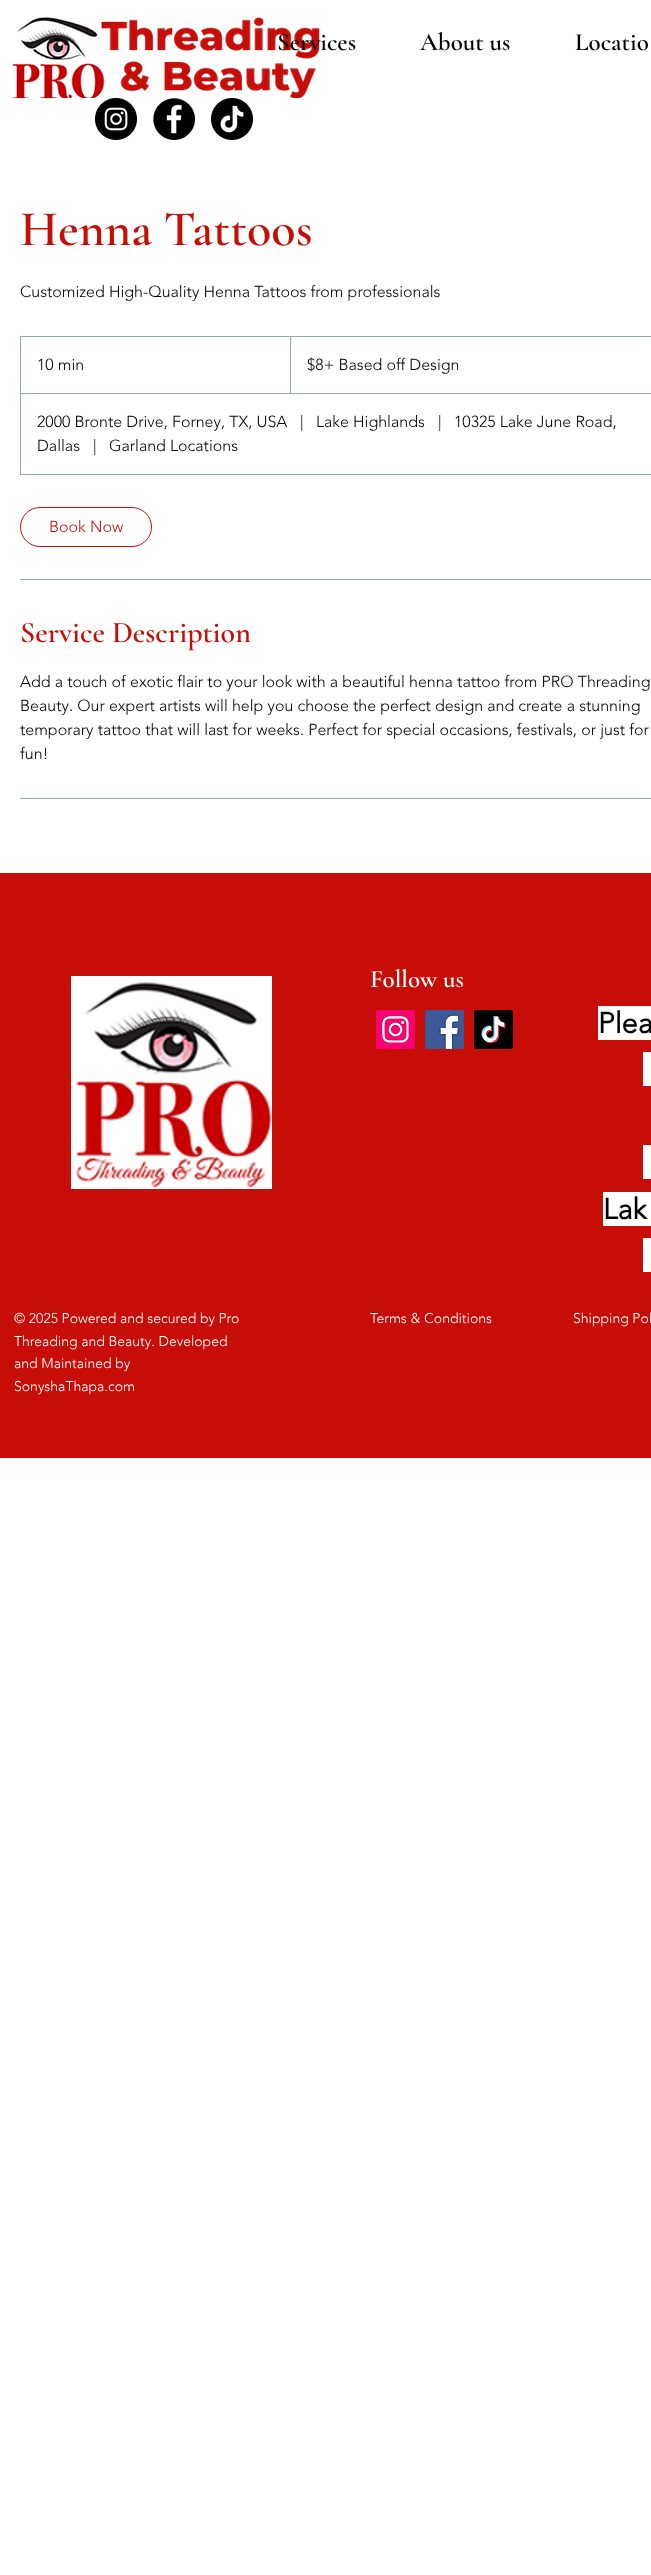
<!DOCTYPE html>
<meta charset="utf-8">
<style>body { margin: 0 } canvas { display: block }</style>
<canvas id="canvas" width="651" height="2575"></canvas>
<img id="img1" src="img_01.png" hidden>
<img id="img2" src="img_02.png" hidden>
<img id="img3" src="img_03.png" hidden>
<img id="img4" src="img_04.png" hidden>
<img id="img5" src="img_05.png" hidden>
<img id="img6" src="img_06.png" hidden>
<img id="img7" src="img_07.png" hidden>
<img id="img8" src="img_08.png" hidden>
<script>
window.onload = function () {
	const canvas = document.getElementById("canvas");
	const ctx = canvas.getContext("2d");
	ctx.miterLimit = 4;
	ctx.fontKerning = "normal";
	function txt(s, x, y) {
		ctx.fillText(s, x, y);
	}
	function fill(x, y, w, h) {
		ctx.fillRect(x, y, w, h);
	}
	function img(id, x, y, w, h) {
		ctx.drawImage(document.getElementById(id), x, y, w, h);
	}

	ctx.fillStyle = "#FFFFFF";
	fill(0, 0, 651, 2575);
	img("img1", 12, 17, 308, 81);
	img("img2", 95, 98, 42, 42);
	img("img3", 153, 98, 42, 42);
	img("img4", 211, 98, 42, 42);
	ctx.strokeStyle = "#91A9B0";
	ctx.strokeRect(20.5, 336.5, 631, 138);
	ctx.fillStyle = "#91A9B0";
	fill(290, 337, 1, 56);
	fill(21, 393, 630, 1);
	ctx.beginPath();
	ctx.roundRect(20.5, 507.5, 131, 39, 19.5);
	ctx.strokeStyle = "#C70D08";
	ctx.stroke();
	fill(20, 579, 631, 1);
	fill(20, 798, 631, 1);
	ctx.fillStyle = "#C70D08";
	fill(0, 873, 651, 585);
	img("img5", 71, 976, 201, 213);
	img("img6", 376, 1010, 39, 39);
	img("img7", 425, 1010, 39, 39);
	img("img8", 474, 1010, 39, 39);
	ctx.fillStyle = "#FFFFFE";
	fill(598, 1006, 53, 34);
	fill(643, 1052, 8, 34);
	fill(643, 1145, 8, 34);
	fill(603, 1192, 48, 34);
	fill(643, 1238, 8, 34);
	ctx.font = "600 25px Cormorant Garamond";
	ctx.fillStyle = "#000000";
	txt("Services", 277, 50);
	txt("About us", 420, 50);
	txt("Locatio", 575, 50);
	ctx.font = "600 50px Cormorant Garamond";
	ctx.fillStyle = "#C70D08";
	txt("Henna Tattoos", 20, 245);
	ctx.font = "300 16px 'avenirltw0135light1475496'";
	ctx.fillStyle = "#000000";
	txt("Customized High-Quality Henna Tattoos from professionals", 20, 297);
	txt("10 min", 37, 370);
	txt("$8+ Based off Design", 307, 370);
	txt("2000 Bronte Drive, Forney, TX, USA", 37, 427);
	txt("|", 300, 427);
	txt("Lake Highlands", 316, 427);
	txt("|", 438, 427);
	txt("10325 Lake June Road,", 454, 427);
	txt("Dallas", 37, 451);
	txt("|", 93, 451);
	txt("Garland Locations", 109, 451);
	ctx.fillStyle = "#C70D08";
	txt("Book Now", 49, 532);
	ctx.font = "600 30px Cormorant Garamond";
	txt("Service Description", 20, 642);
	ctx.font = "300 16px 'avenirltw0135light1475496'";
	ctx.fillStyle = "#000000";
	txt("Add a touch of exotic flair to your look with a beautiful henna tattoo from PRO Threading", 20, 687);
	txt("Beauty. Our expert artists will help you choose the perfect design and create a stunning", 20, 711);
	txt("temporary tattoo that will last for weeks. Perfect for special occasions, festivals, or just for", 20, 735);
	txt("fun!", 20, 759);
	ctx.font = "600 25px Cormorant Garamond";
	ctx.fillStyle = "#FFFFFF";
	txt("Follow us", 370, 987);
	ctx.font = "bold 29px 'avenirltw0135light1475496'";
	ctx.fillStyle = "#000000";
	txt("Plea", 598, 1033);
	txt("Lak", 603, 1219);
	ctx.font = "300 14px 'avenirltw0135light1475496'";
	ctx.fillStyle = "#FFFFFF";
	txt("© 2025 Powered and secured by Pro", 14, 1323);
	txt("Threading and Beauty. Developed", 14, 1346);
	txt("and Maintained by", 14, 1368);
	txt("SonyshaThapa.com", 14, 1391);
	txt("Terms & Conditions", 370, 1323);
	txt("Shipping Pol", 573, 1323);
};
</script>
